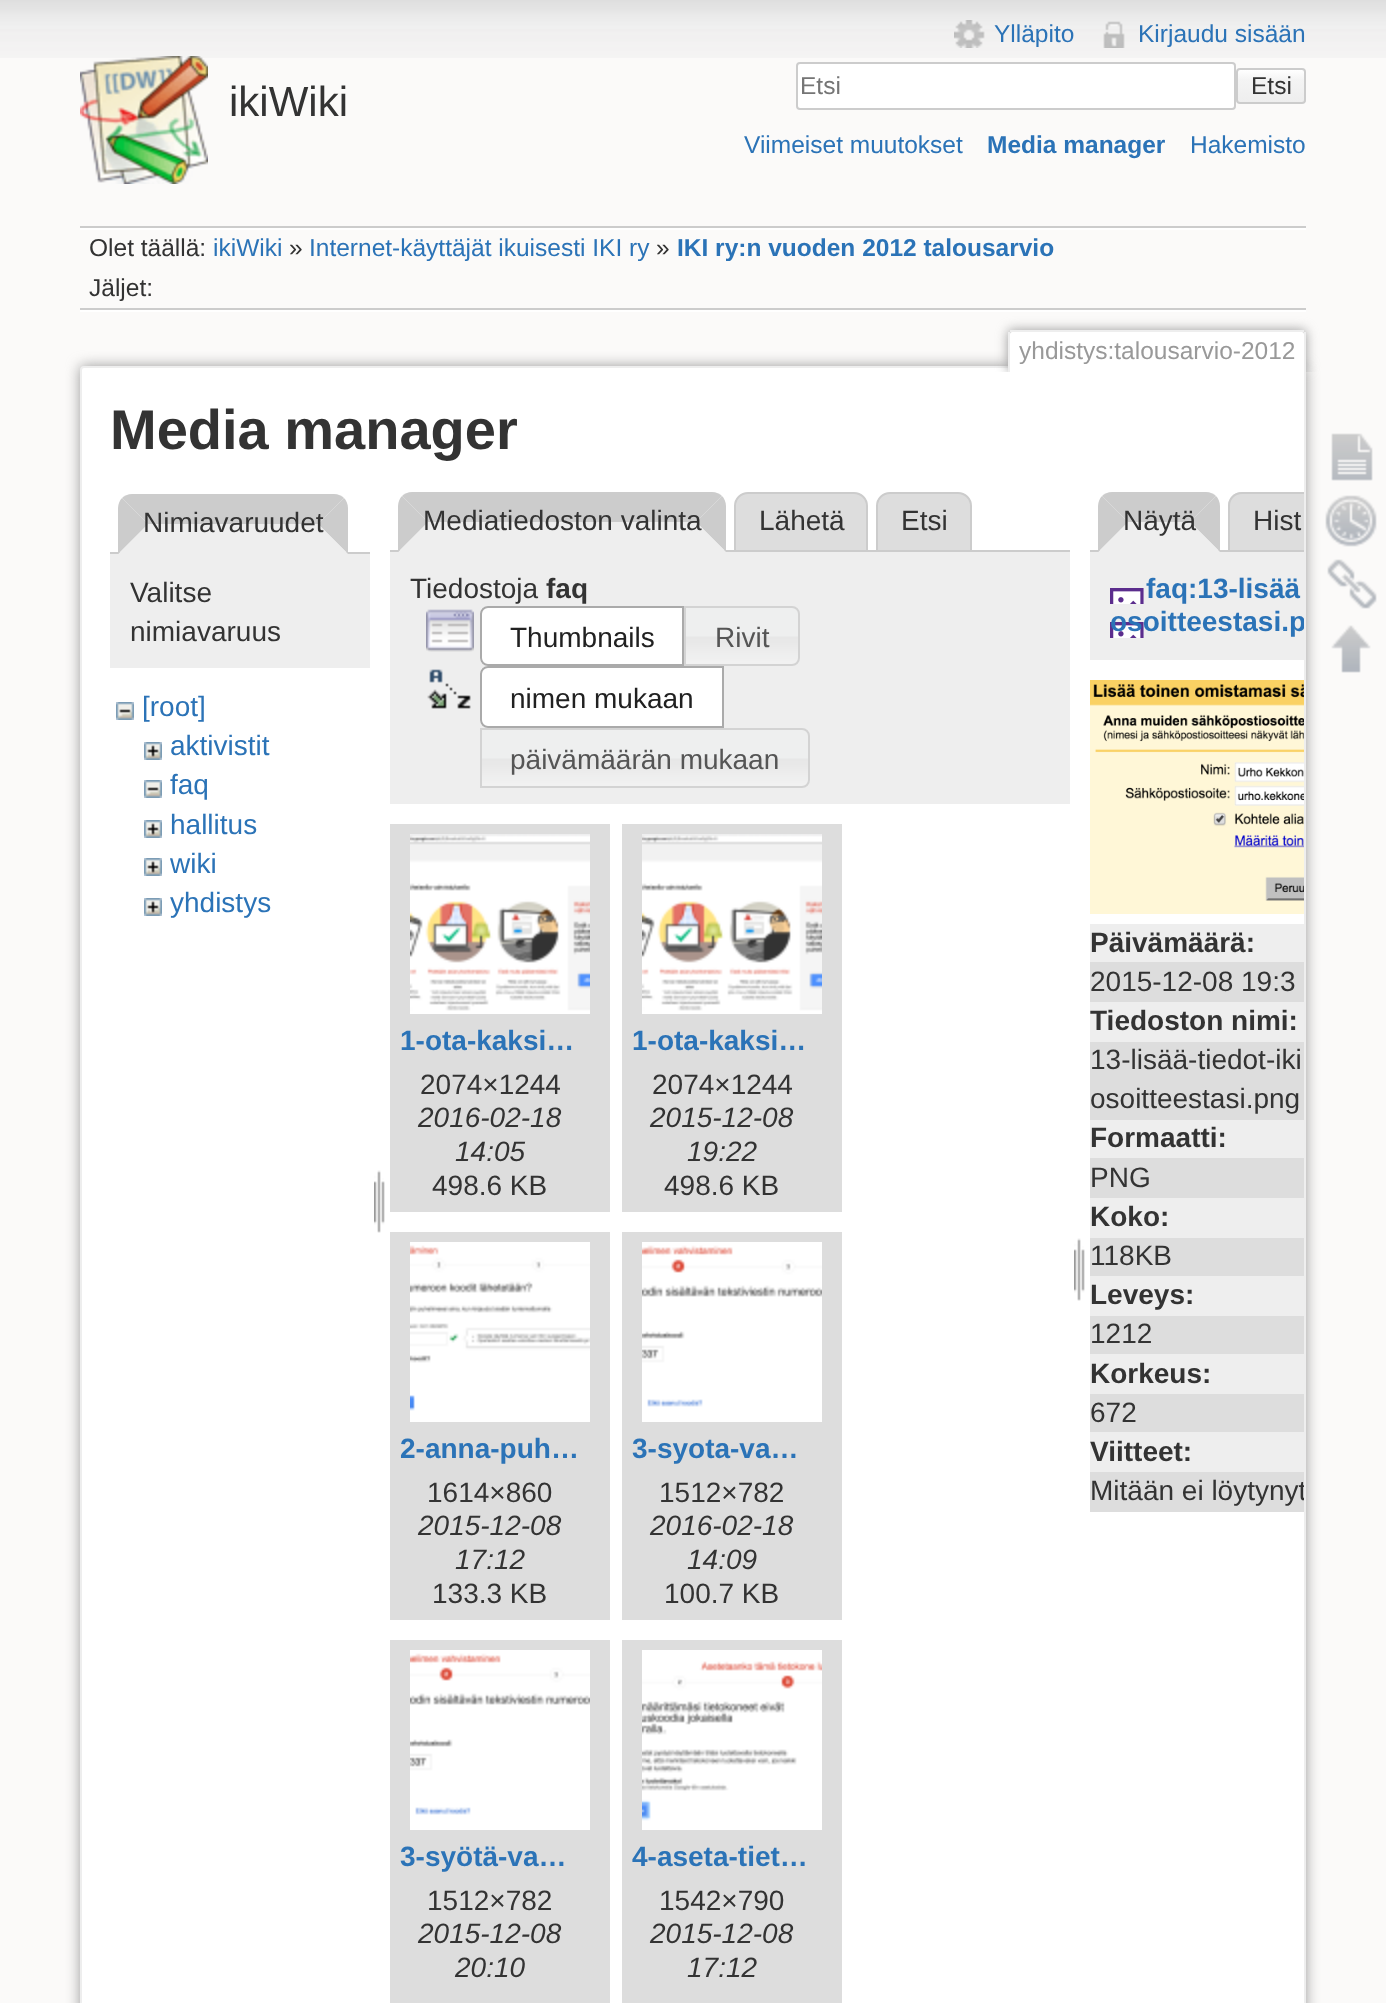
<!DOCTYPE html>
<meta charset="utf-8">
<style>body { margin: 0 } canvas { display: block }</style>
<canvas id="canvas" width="1386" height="2003"></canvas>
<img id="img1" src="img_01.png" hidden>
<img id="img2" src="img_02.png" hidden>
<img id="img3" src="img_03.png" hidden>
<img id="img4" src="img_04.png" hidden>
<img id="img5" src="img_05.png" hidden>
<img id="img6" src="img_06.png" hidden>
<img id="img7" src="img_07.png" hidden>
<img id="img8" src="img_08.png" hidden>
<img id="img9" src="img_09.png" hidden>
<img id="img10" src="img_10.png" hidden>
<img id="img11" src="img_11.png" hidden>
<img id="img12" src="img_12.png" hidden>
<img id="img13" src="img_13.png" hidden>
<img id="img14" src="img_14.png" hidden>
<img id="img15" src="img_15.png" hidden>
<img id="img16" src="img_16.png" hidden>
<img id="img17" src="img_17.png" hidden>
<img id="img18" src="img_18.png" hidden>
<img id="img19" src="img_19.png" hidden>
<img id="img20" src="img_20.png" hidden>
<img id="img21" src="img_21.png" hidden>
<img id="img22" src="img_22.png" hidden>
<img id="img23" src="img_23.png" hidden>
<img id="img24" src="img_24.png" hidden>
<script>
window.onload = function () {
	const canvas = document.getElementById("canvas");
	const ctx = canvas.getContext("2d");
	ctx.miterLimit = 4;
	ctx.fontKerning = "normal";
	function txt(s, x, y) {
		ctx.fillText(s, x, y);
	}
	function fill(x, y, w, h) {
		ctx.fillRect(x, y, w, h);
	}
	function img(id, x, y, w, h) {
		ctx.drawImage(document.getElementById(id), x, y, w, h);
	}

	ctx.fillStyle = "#FBFAF9";
	fill(0, 0, 1386, 2003);
	img("img1", 0, 0, 1386, 58);
	img("img2", 80, 56, 128, 128);
	img("img3", 954, 20, 31, 28);
	img("img4", 1103, 21, 22, 27);
	ctx.fillStyle = "#FFFFFF";
	ctx.beginPath();
	ctx.roundRect(797, 63, 438, 46, 3);
	ctx.fill();
	ctx.strokeStyle = "#CCCCCC";
	ctx.lineWidth = 2;
	ctx.stroke();
	img("img5", 1236, 70, 70, 34);
	ctx.beginPath();
	ctx.roundRect(1237, 69, 68, 34, 3);
	ctx.stroke();
	ctx.fillStyle = "#CCCCCC";
	fill(80, 226, 1226, 2);
	ctx.fillStyle = "#FFFFFF";
	fill(80, 310, 1226, 2);
	fill(80, 228, 1226, 2);
	ctx.fillStyle = "#CCCCCC";
	fill(80, 308, 1226, 2);
	ctx.fillStyle = "#999999";
	ctx.filter = "blur(7px)";
	ctx.beginPath();
	ctx.roundRect(80, 366, 1226, 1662, 4);
	ctx.fill();
	ctx.filter = "none";
	ctx.fillStyle = "#FFFFFF";
	ctx.beginPath();
	ctx.roundRect(81, 367, 1224, 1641, 3);
	ctx.fill();
	ctx.strokeStyle = "#EEEEEE";
	ctx.stroke();
	ctx.save();
	ctx.beginPath();
	ctx.rect(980, 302, 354, 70);
	ctx.clip();
	ctx.fillStyle = "#999999";
	ctx.filter = "blur(6px)";
	ctx.beginPath();
	ctx.roundRect(1008, 330, 298, 42, 4);
	ctx.fill();
	ctx.filter = "none";
	ctx.restore();
	ctx.beginPath();
	ctx.roundRect(1010, 332, 294, 40, [2, 2, 0, 0]);
	ctx.fill();
	ctx.fillStyle = "#EEEEEE";
	fill(1010, 330, 294, 2);
	fill(1304, 332, 2, 40);
	fill(1008, 332, 2, 40);
	ctx.fillStyle = "#CCCCCC";
	ctx.beginPath();
	ctx.moveTo(132, 494);
	ctx.lineTo(334, 494);
	ctx.bezierCurveTo(338, 494, 342, 496, 344, 498);
	ctx.lineTo(318, 524);
	ctx.lineTo(148, 524);
	ctx.lineTo(122, 498);
	ctx.bezierCurveTo(124, 496, 128, 494, 132, 494);
	ctx.closePath();
	ctx.fill();
	fill(110, 552, 260, 2);
	ctx.beginPath();
	ctx.moveTo(344, 498);
	ctx.lineTo(318, 524);
	ctx.lineTo(348, 554);
	ctx.lineTo(348, 508);
	ctx.bezierCurveTo(348, 504, 346, 500, 344, 498);
	ctx.closePath();
	ctx.fill();
	ctx.fillStyle = "#EEEEEE";
	ctx.beginPath();
	ctx.moveTo(348, 554);
	ctx.lineTo(318, 524);
	ctx.lineTo(148, 524);
	ctx.lineTo(118, 554);
	ctx.closePath();
	ctx.fill();
	ctx.fillStyle = "#CCCCCC";
	ctx.beginPath();
	ctx.moveTo(118, 554);
	ctx.lineTo(118, 508);
	ctx.bezierCurveTo(118, 504, 120, 500, 122, 498);
	ctx.lineTo(148, 524);
	ctx.closePath();
	ctx.fill();
	ctx.fillStyle = "#EEEEEE";
	fill(110, 554, 260, 114);
	img("img6", 116, 702, 18, 18);
	img("img7", 144, 742, 18, 18);
	img("img6", 144, 780, 18, 18);
	img("img7", 144, 820, 18, 18);
	img("img7", 144, 858, 18, 18);
	img("img7", 144, 898, 18, 18);
	img("img8", 374, 1170, 11, 63);
	ctx.fillStyle = "#CCCCCC";
	ctx.beginPath();
	ctx.moveTo(412, 492);
	ctx.lineTo(712, 492);
	ctx.bezierCurveTo(716, 492, 720, 494, 722, 496);
	ctx.lineTo(696, 522);
	ctx.lineTo(428, 522);
	ctx.lineTo(402, 496);
	ctx.bezierCurveTo(404, 494, 408, 492, 412, 492);
	ctx.closePath();
	ctx.fill();
	ctx.fillStyle = "#DDDDDD";
	ctx.beginPath();
	ctx.roundRect(735, 493, 132, 58, [13, 13, 0, 0]);
	ctx.fill();
	ctx.strokeStyle = "#CCCCCC";
	ctx.stroke();
	ctx.beginPath();
	ctx.roundRect(877, 493, 94, 58, [13, 13, 0, 0]);
	ctx.fill();
	ctx.stroke();
	ctx.fillStyle = "#CCCCCC";
	fill(390, 550, 680, 2);
	ctx.beginPath();
	ctx.moveTo(722, 496);
	ctx.lineTo(696, 522);
	ctx.lineTo(726, 552);
	ctx.lineTo(726, 506);
	ctx.bezierCurveTo(726, 502, 724, 498, 722, 496);
	ctx.closePath();
	ctx.fill();
	ctx.fillStyle = "#EEEEEE";
	ctx.beginPath();
	ctx.moveTo(726, 552);
	ctx.lineTo(696, 522);
	ctx.lineTo(428, 522);
	ctx.lineTo(398, 552);
	ctx.closePath();
	ctx.fill();
	ctx.fillStyle = "#CCCCCC";
	ctx.beginPath();
	ctx.moveTo(398, 552);
	ctx.lineTo(398, 506);
	ctx.bezierCurveTo(398, 502, 400, 498, 402, 496);
	ctx.lineTo(428, 522);
	ctx.closePath();
	ctx.fill();
	ctx.fillStyle = "#EEEEEE";
	fill(390, 552, 680, 252);
	img("img9", 426, 609, 48, 43);
	ctx.fillStyle = "#FFFFFF";
	ctx.beginPath();
	ctx.roundRect(480, 606, 204, 60, [8, 0, 0, 8]);
	ctx.fill();
	img("img10", 480, 606, 6, 60);
	ctx.beginPath();
	ctx.roundRect(481, 607, 202, 58, [7, 0, 0, 7]);
	ctx.strokeStyle = "#AAAAAA";
	ctx.stroke();
	img("img11", 686, 606, 114, 60);
	ctx.beginPath();
	ctx.roundRect(685, 607, 114, 58, [0, 7, 7, 0]);
	ctx.strokeStyle = "#D3D3D3";
	ctx.stroke();
	img("img12", 427, 669, 44, 40);
	ctx.beginPath();
	ctx.roundRect(480, 666, 244, 62, [8, 0, 0, 8]);
	ctx.fill();
	img("img13", 480, 666, 6, 62);
	ctx.beginPath();
	ctx.roundRect(481, 667, 242, 60, [7, 0, 0, 7]);
	ctx.strokeStyle = "#AAAAAA";
	ctx.stroke();
	img("img14", 482, 728, 328, 60);
	ctx.beginPath();
	ctx.roundRect(481, 729, 328, 58, [0, 7, 7, 0]);
	ctx.strokeStyle = "#D3D3D3";
	ctx.stroke();
	ctx.fillStyle = "#DDDDDD";
	fill(390, 824, 220, 388);
	img("img15", 410, 834, 180, 180);
	fill(622, 824, 220, 388);
	img("img15", 642, 834, 180, 180);
	fill(390, 1232, 220, 388);
	img("img16", 410, 1242, 180, 180);
	fill(622, 1232, 220, 388);
	img("img17", 642, 1242, 180, 180);
	fill(390, 1640, 220, 363);
	img("img17", 410, 1650, 180, 180);
	fill(622, 1640, 220, 363);
	img("img18", 642, 1650, 180, 180);
	img("img8", 1074, 1238, 11, 63);
	ctx.fillStyle = "#CCCCCC";
	ctx.beginPath();
	ctx.moveTo(1112, 492);
	ctx.lineTo(1206, 492);
	ctx.bezierCurveTo(1210, 492, 1214, 494, 1216, 496);
	ctx.lineTo(1190, 522);
	ctx.lineTo(1128, 522);
	ctx.lineTo(1102, 496);
	ctx.bezierCurveTo(1104, 494, 1108, 492, 1112, 492);
	ctx.closePath();
	ctx.fill();
	fill(1090, 550, 138, 2);
	ctx.beginPath();
	ctx.moveTo(1216, 496);
	ctx.lineTo(1190, 522);
	ctx.lineTo(1220, 552);
	ctx.lineTo(1220, 506);
	ctx.bezierCurveTo(1220, 502, 1218, 498, 1216, 496);
	ctx.closePath();
	ctx.fill();
	ctx.fillStyle = "#EEEEEE";
	ctx.beginPath();
	ctx.moveTo(1220, 552);
	ctx.lineTo(1190, 522);
	ctx.lineTo(1128, 522);
	ctx.lineTo(1098, 552);
	ctx.closePath();
	ctx.fill();
	ctx.fillStyle = "#CCCCCC";
	ctx.beginPath();
	ctx.moveTo(1098, 552);
	ctx.lineTo(1098, 506);
	ctx.bezierCurveTo(1098, 502, 1100, 498, 1102, 496);
	ctx.lineTo(1128, 522);
	ctx.closePath();
	ctx.fill();
	ctx.fillStyle = "#DDDDDD";
	ctx.beginPath();
	ctx.roundRect(1228, 492, 76, 60, [14, 0, 0, 0]);
	ctx.fill();
	ctx.fillStyle = "#CCCCCC";
	ctx.beginPath();
	ctx.moveTo(1242, 492);
	ctx.bezierCurveTo(1234, 492, 1228, 498, 1228, 506);
	ctx.lineTo(1228, 552);
	ctx.lineTo(1304, 552);
	ctx.lineTo(1304, 550);
	ctx.lineTo(1230, 550);
	ctx.lineTo(1230, 506);
	ctx.bezierCurveTo(1230, 499, 1235, 494, 1242, 494);
	ctx.lineTo(1304, 494);
	ctx.lineTo(1304, 492);
	ctx.closePath();
	ctx.fill();
	ctx.fillStyle = "#EEEEEE";
	fill(1090, 552, 214, 108);
	img("img19", 1110, 588, 34, 50);
	img("img20", 1090, 680, 214, 234);
	fill(1090, 924, 214, 38);
	ctx.fillStyle = "#DDDDDD";
	fill(1090, 962, 214, 40);
	ctx.fillStyle = "#EEEEEE";
	fill(1090, 1002, 214, 40);
	ctx.fillStyle = "#DDDDDD";
	fill(1090, 1042, 214, 78);
	ctx.fillStyle = "#EEEEEE";
	fill(1090, 1120, 214, 38);
	ctx.fillStyle = "#DDDDDD";
	fill(1090, 1158, 214, 40);
	ctx.fillStyle = "#EEEEEE";
	fill(1090, 1198, 214, 40);
	ctx.fillStyle = "#DDDDDD";
	fill(1090, 1238, 214, 38);
	ctx.fillStyle = "#EEEEEE";
	fill(1090, 1276, 214, 40);
	ctx.fillStyle = "#DDDDDD";
	fill(1090, 1316, 214, 38);
	ctx.fillStyle = "#EEEEEE";
	fill(1090, 1354, 214, 40);
	ctx.fillStyle = "#DDDDDD";
	fill(1090, 1394, 214, 38);
	ctx.fillStyle = "#EEEEEE";
	fill(1090, 1432, 214, 40);
	ctx.fillStyle = "#DDDDDD";
	fill(1090, 1472, 214, 40);
	img("img21", 1331, 433, 42, 48);
	img("img22", 1325, 495, 52, 52);
	img("img23", 1327, 559, 50, 50);
	img("img24", 1331, 625, 40, 48);
	ctx.font = "42px Liberation Sans";
	ctx.fillStyle = "#333333";
	txt("ikiWiki", 229, 116);
	ctx.font = "24.5px Liberation Sans";
	ctx.fillStyle = "#2B73B7";
	txt("Ylläpito", 994, 42);
	txt("Kirjaudu sisään", 1138, 42);
	ctx.fillStyle = "#757575";
	txt("Etsi", 800, 94);
	ctx.fillStyle = "#333333";
	txt("Etsi", 1251, 94);
	ctx.fillStyle = "#2B73B7";
	txt("Viimeiset muutokset", 744, 153);
	ctx.font = "bold 24.5px Liberation Sans";
	txt("Media manager", 987, 153);
	ctx.font = "24.5px Liberation Sans";
	txt("Hakemisto", 1190, 153);
	ctx.fillStyle = "#333333";
	txt("Olet täällä:", 89, 256);
	ctx.fillStyle = "#2B73B7";
	txt("ikiWiki", 213, 256);
	ctx.fillStyle = "#333333";
	txt("»", 289, 256);
	ctx.fillStyle = "#2B73B7";
	txt("Internet-käyttäjät ikuisesti IKI ry", 309, 256);
	ctx.fillStyle = "#333333";
	txt("»", 656, 256);
	ctx.font = "bold 24.5px Liberation Sans";
	ctx.fillStyle = "#2B73B7";
	txt("IKI ry:n vuoden 2012 talousarvio", 677, 256);
	ctx.font = "24.5px Liberation Sans";
	ctx.fillStyle = "#333333";
	txt("Jäljet:", 89, 296);
	ctx.fillStyle = "#999999";
	txt("yhdistys:talousarvio-2012", 1019, 359);
	ctx.font = "bold 56px Liberation Sans";
	ctx.fillStyle = "#333333";
	txt("Media manager", 110, 449);
	ctx.font = "28px Liberation Sans";
	txt("Nimiavaruudet", 143, 532);
	txt("Valitse", 130, 602);
	txt("nimiavaruus", 130, 641);
	ctx.fillStyle = "#2B73B7";
	txt("[root]", 142, 716);
	txt("aktivistit", 170, 755);
	txt("faq", 170, 794);
	txt("hallitus", 170, 834);
	txt("wiki", 170, 873);
	txt("yhdistys", 170, 912);
	ctx.fillStyle = "#333333";
	txt("Mediatiedoston valinta", 423, 530);
	txt("Lähetä", 759, 530);
	txt("Etsi", 901, 530);
	txt("Tiedostoja", 410, 598);
	ctx.font = "bold 28px Liberation Sans";
	txt("faq", 546, 598);
	ctx.font = "28px Liberation Sans";
	ctx.fillStyle = "#212121";
	txt("Thumbnails", 510, 647);
	ctx.fillStyle = "#555555";
	txt("Rivit", 715, 647);
	ctx.fillStyle = "#212121";
	txt("nimen mukaan", 510, 708);
	ctx.fillStyle = "#555555";
	txt("päivämäärän mukaan", 510, 769);
	ctx.font = "bold 28px Liberation Sans";
	ctx.fillStyle = "#2B73B7";
	txt("1-ota-kaksi…", 400, 1050);
	ctx.font = "28px Liberation Sans";
	ctx.fillStyle = "#333333";
	txt("2074×1244", 420, 1094);
	ctx.font = "italic 28px Liberation Sans";
	txt("2016-02-18", 418, 1127);
	txt("14:05", 455, 1161);
	ctx.font = "28px Liberation Sans";
	txt("498.6 KB", 432, 1195);
	ctx.font = "bold 28px Liberation Sans";
	ctx.fillStyle = "#2B73B7";
	txt("1-ota-kaksi…", 632, 1050);
	ctx.font = "28px Liberation Sans";
	ctx.fillStyle = "#333333";
	txt("2074×1244", 652, 1094);
	ctx.font = "italic 28px Liberation Sans";
	txt("2015-12-08", 650, 1127);
	txt("19:22", 687, 1161);
	ctx.font = "28px Liberation Sans";
	txt("498.6 KB", 664, 1195);
	ctx.font = "bold 28px Liberation Sans";
	ctx.fillStyle = "#2B73B7";
	txt("2-anna-puh…", 400, 1458);
	ctx.font = "28px Liberation Sans";
	ctx.fillStyle = "#333333";
	txt("1614×860", 427, 1502);
	ctx.font = "italic 28px Liberation Sans";
	txt("2015-12-08", 418, 1535);
	txt("17:12", 455, 1569);
	ctx.font = "28px Liberation Sans";
	txt("133.3 KB", 432, 1603);
	ctx.font = "bold 28px Liberation Sans";
	ctx.fillStyle = "#2B73B7";
	txt("3-syota-va…", 632, 1458);
	ctx.font = "28px Liberation Sans";
	ctx.fillStyle = "#333333";
	txt("1512×782", 659, 1502);
	ctx.font = "italic 28px Liberation Sans";
	txt("2016-02-18", 650, 1535);
	txt("14:09", 687, 1569);
	ctx.font = "28px Liberation Sans";
	txt("100.7 KB", 664, 1603);
	ctx.font = "bold 28px Liberation Sans";
	ctx.fillStyle = "#2B73B7";
	txt("3-syötä-va…", 400, 1866);
	ctx.font = "28px Liberation Sans";
	ctx.fillStyle = "#333333";
	txt("1512×782", 427, 1910);
	ctx.font = "italic 28px Liberation Sans";
	txt("2015-12-08", 418, 1943);
	txt("20:10", 455, 1977);
	ctx.font = "bold 28px Liberation Sans";
	ctx.fillStyle = "#2B73B7";
	txt("4-aseta-tiet…", 632, 1866);
	ctx.font = "28px Liberation Sans";
	ctx.fillStyle = "#333333";
	txt("1542×790", 659, 1910);
	ctx.font = "italic 28px Liberation Sans";
	txt("2015-12-08", 650, 1943);
	txt("17:12", 687, 1977);
	ctx.font = "28px Liberation Sans";
	txt("Näytä", 1123, 530);
	txt("Hist", 1253, 530);
	ctx.font = "bold 28px Liberation Sans";
	ctx.fillStyle = "#2B73B7";
	txt("faq:13-lisää", 1146, 598);
	ctx.save();
	ctx.beginPath();
	ctx.roundRect(82, 368, 1222, 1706, 2);
	ctx.clip();
	txt("osoitteestasi.p", 1110, 631);
	ctx.restore();
	ctx.fillStyle = "#333333";
	txt("Päivämäärä:", 1090, 952);
	ctx.font = "28px Liberation Sans";
	txt("2015-12-08 19:3", 1090, 991);
	ctx.font = "bold 28px Liberation Sans";
	txt("Tiedoston nimi:", 1090, 1030);
	ctx.font = "28px Liberation Sans";
	txt("13-lisää-tiedot-iki", 1090, 1069);
	txt("osoitteestasi.png", 1090, 1108);
	ctx.font = "bold 28px Liberation Sans";
	txt("Formaatti:", 1090, 1147);
	ctx.font = "28px Liberation Sans";
	txt("PNG", 1090, 1187);
	ctx.font = "bold 28px Liberation Sans";
	txt("Koko:", 1090, 1226);
	ctx.font = "28px Liberation Sans";
	txt("118KB", 1090, 1265);
	ctx.font = "bold 28px Liberation Sans";
	txt("Leveys:", 1090, 1304);
	ctx.font = "28px Liberation Sans";
	txt("1212", 1090, 1343);
	ctx.font = "bold 28px Liberation Sans";
	txt("Korkeus:", 1090, 1383);
	ctx.font = "28px Liberation Sans";
	txt("672", 1090, 1422);
	ctx.font = "bold 28px Liberation Sans";
	txt("Viitteet:", 1090, 1461);
	ctx.save();
	ctx.beginPath();
	ctx.roundRect(82, 368, 1222, 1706, 2);
	ctx.clip();
	ctx.font = "28px Liberation Sans";
	txt("Mitään ei löytynyt", 1090, 1500);
	ctx.restore();
};
</script>
